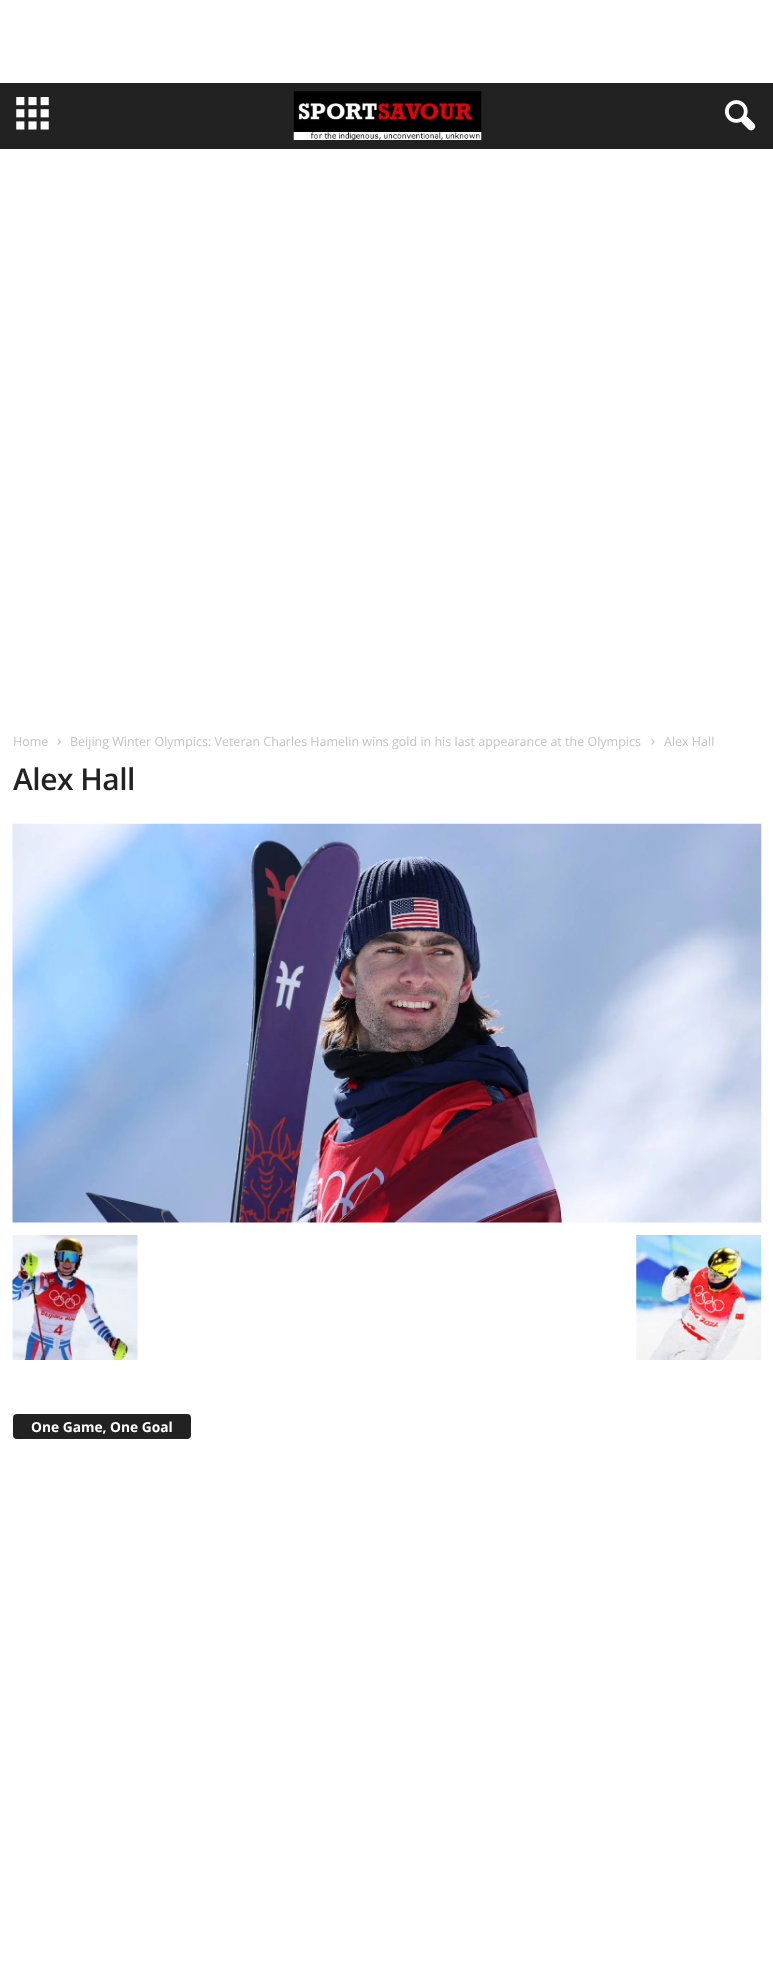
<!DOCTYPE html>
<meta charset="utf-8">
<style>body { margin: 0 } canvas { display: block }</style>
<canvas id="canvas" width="773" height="1964"></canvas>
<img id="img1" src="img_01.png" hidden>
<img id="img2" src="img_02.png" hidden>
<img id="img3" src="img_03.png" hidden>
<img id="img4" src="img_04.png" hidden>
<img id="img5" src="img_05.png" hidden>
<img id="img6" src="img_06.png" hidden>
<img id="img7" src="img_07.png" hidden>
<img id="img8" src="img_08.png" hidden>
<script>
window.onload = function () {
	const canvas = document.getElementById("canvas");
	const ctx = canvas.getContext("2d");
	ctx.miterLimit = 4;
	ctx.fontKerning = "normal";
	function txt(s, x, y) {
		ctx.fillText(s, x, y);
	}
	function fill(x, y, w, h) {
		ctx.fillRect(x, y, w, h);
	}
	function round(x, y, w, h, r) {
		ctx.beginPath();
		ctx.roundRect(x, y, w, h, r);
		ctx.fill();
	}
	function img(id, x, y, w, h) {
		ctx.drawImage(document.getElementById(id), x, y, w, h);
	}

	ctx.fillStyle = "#FFFFFF";
	fill(0, 0, 773, 1964);
	ctx.fillStyle = "#222222";
	fill(0, 83, 773, 66);
	img("img1", 16, 97, 33, 33);
	img("img2", 293, 91, 189, 49);
	img("img3", 725, 100, 31, 31);
	img("img4", 57, 739, 4, 6);
	img("img5", 651, 739, 4, 6);
	img("img6", 12, 823, 750, 400);
	img("img7", 12, 1235, 126, 125);
	img("img8", 636, 1235, 126, 125);
	round(13, 1414, 178, 25, 4);
	ctx.font = "12.5px Open Sans";
	ctx.fillStyle = "#C3C3C3";
	txt("Home", 13, 746);
	txt("Beijing Winter Olympics: Veteran Charles Hamelin wins gold in his last appearance at the Olympics", 70, 746);
	txt("Alex Hall", 664, 746);
	ctx.letterSpacing = "-0.5px";
	ctx.font = "600 30px Open Sans";
	ctx.fillStyle = "#222222";
	txt("Alex Hall", 13, 790);
	ctx.letterSpacing = "0px";
	ctx.font = "bold 13.75px Open Sans";
	ctx.fillStyle = "#FFFFFF";
	txt("One Game, One Goal", 31, 1432);
};
</script>
